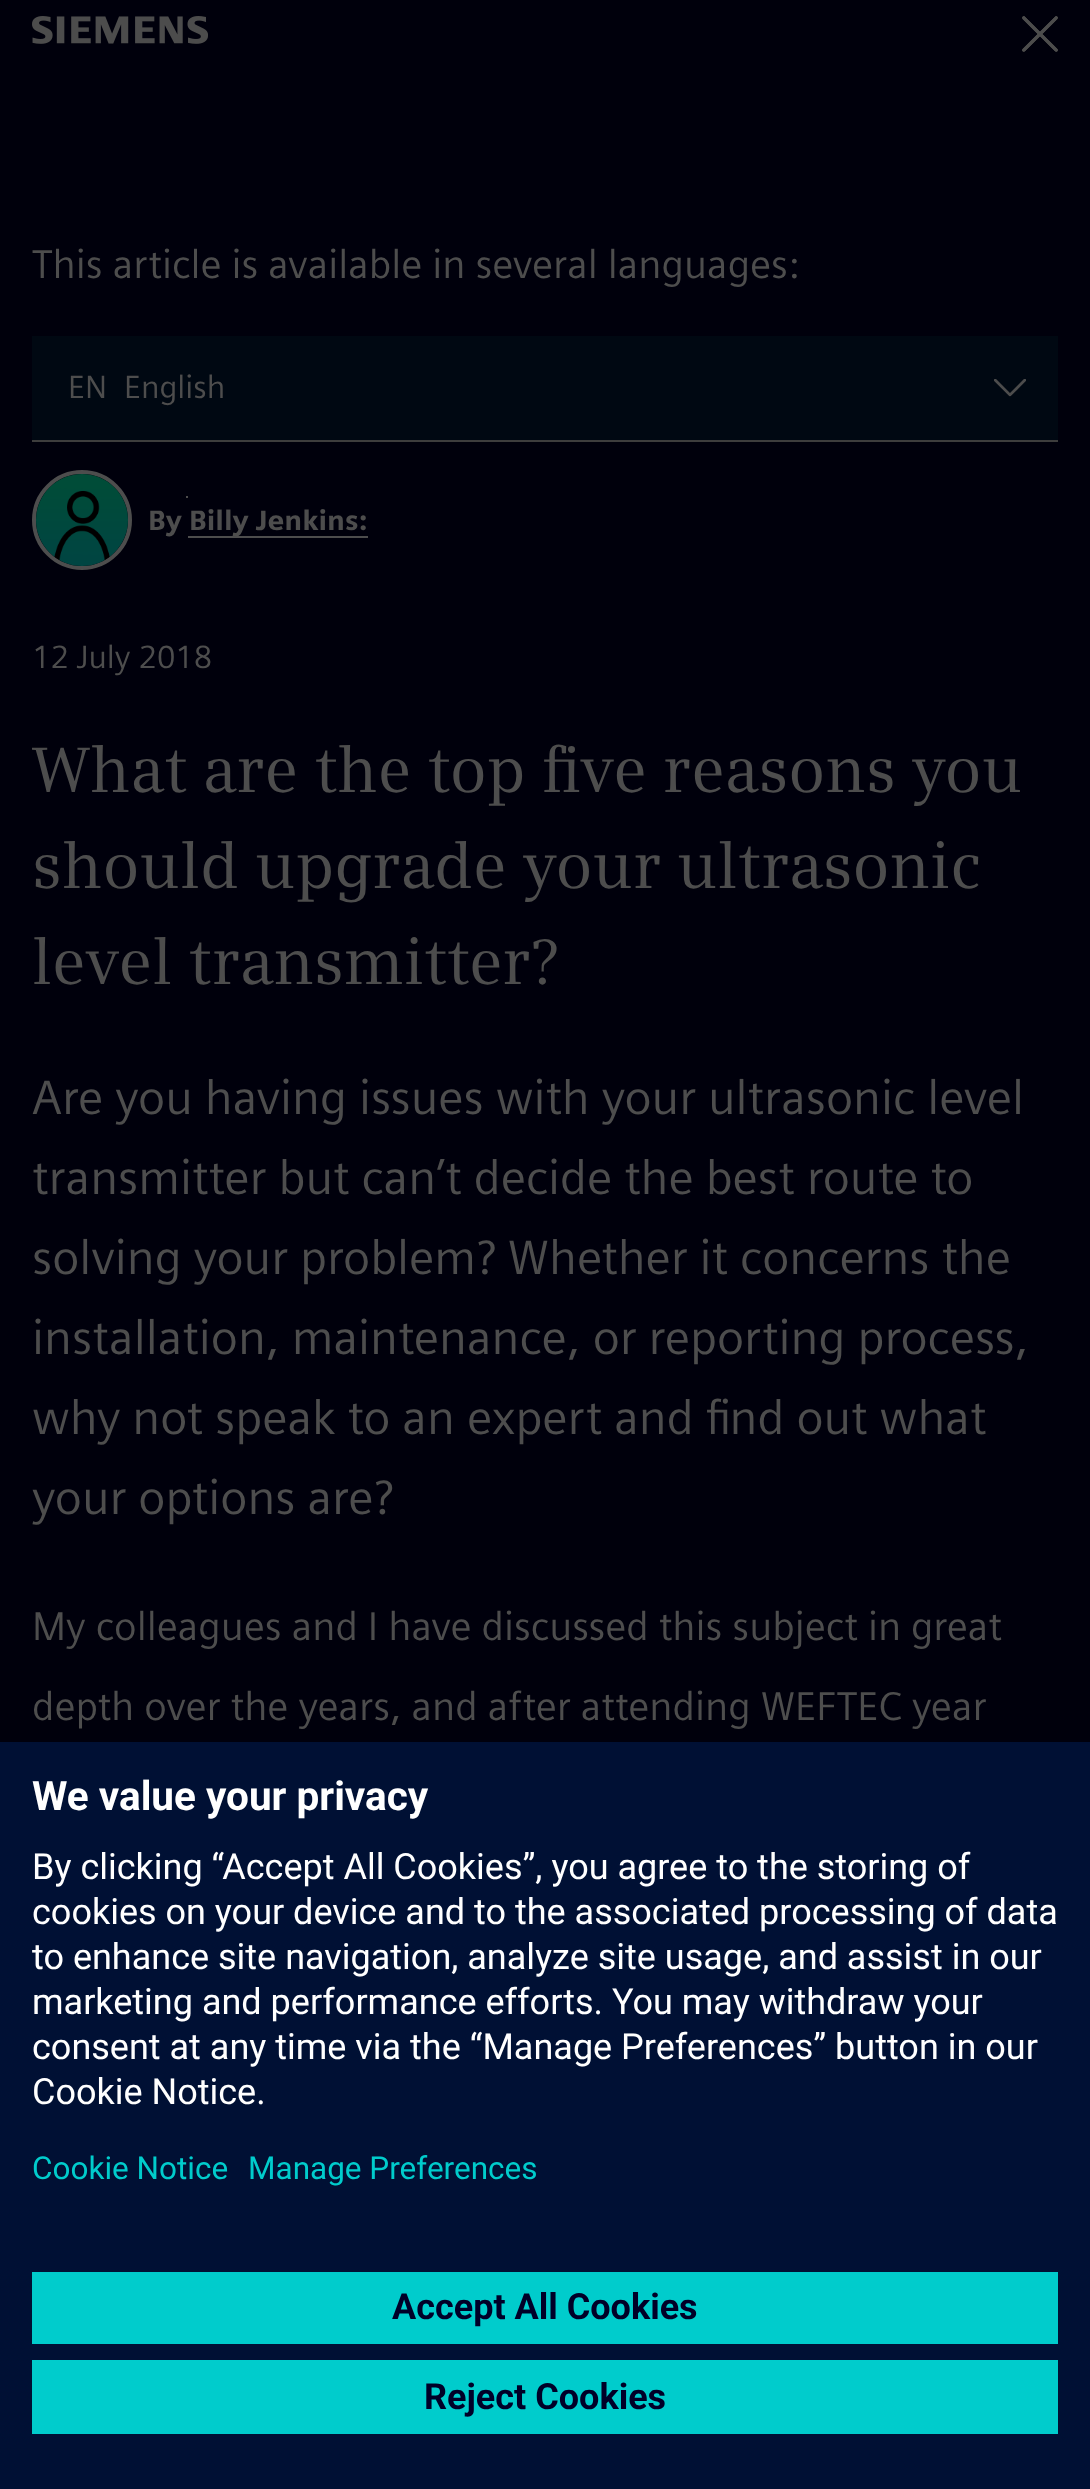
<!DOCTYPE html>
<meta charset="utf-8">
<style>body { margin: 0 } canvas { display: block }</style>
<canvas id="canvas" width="1090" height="2489"></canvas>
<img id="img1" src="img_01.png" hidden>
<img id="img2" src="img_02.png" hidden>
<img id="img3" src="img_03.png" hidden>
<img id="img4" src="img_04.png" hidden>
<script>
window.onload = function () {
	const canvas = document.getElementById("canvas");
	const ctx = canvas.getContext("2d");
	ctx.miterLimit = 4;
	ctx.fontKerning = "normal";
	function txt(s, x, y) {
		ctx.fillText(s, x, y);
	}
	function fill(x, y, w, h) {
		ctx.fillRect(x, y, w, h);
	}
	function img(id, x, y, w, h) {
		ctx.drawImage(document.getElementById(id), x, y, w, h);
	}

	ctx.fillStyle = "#00000C";
	fill(0, 0, 1090, 2489);
	img("img1", 32, 16, 176, 28);
	img("img2", 1022, 16, 36, 36);
	ctx.fillStyle = "#000812";
	fill(32, 336, 1026, 104);
	ctx.fillStyle = "#3D3D3D";
	fill(32, 440, 1026, 2);
	img("img3", 994, 379, 32, 18);
	ctx.beginPath();
	ctx.arc(82, 520, 48, 0, Math.PI * 2);
	ctx.strokeStyle = "#4D4D4D";
	ctx.lineWidth = 4;
	ctx.stroke();
	img("img4", 36, 474, 92, 92);
	ctx.fillStyle = "#4D4D4D";
	fill(186, 496, 2, 2);
	fill(188, 536, 180, 2);
	ctx.fillStyle = "#001034";
	fill(0, 1742, 1090, 747);
	ctx.fillStyle = "#00CCCC";
	fill(32, 2272, 1026, 72);
	fill(32, 2360, 1026, 74);
	ctx.font = "40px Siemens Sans";
	ctx.fillStyle = "#4D4D4D";
	txt("This article is available in several languages:", 32, 278);
	ctx.font = "32px Siemens Sans";
	txt("EN", 68, 398);
	txt("English", 124, 398);
	ctx.font = "900 28px Siemens Sans";
	txt("By", 148, 530);
	txt("Billy Jenkins:", 189, 530);
	ctx.font = "32px Siemens Sans";
	txt("12 July 2018", 32, 668);
	ctx.font = "64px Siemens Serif";
	txt("What are the top five reasons you", 32, 792);
	txt("should upgrade your ultrasonic", 32, 888);
	txt("level transmitter?", 32, 984);
	ctx.font = "48px Siemens Sans";
	txt("Are you having issues with your ultrasonic level", 32, 1114);
	txt("transmitter but can’t decide the best route to", 32, 1194);
	txt("solving your problem? Whether it concerns the", 32, 1274);
	txt("installation, maintenance, or reporting process,", 32, 1354);
	txt("why not speak to an expert and find out what", 32, 1434);
	txt("your options are?", 32, 1514);
	ctx.font = "40px Siemens Sans";
	txt("My colleagues and I have discussed this subject in great", 32, 1640);
	txt("depth over the years, and after attending WEFTEC year", 32, 1720);
	ctx.font = "bold 40.5px Roboto";
	ctx.fillStyle = "#FFFFFF";
	txt("We value your privacy", 32, 1810);
	ctx.font = "36px Roboto";
	txt("By clicking “Accept All Cookies”, you agree to the storing of", 32, 1879);
	txt("cookies on your device and to the associated processing of data", 32, 1924);
	txt("to enhance site navigation, analyze site usage, and assist in our", 32, 1969);
	txt("marketing and performance efforts. You may withdraw your", 32, 2014);
	txt("consent at any time via the “Manage Preferences” button in our", 32, 2059);
	txt("Cookie Notice.", 32, 2104);
	ctx.font = "31.5px Roboto";
	ctx.fillStyle = "#00CCCC";
	txt("Cookie Notice", 32, 2179);
	txt("Manage Preferences", 248, 2179);
	ctx.font = "bold 36px Roboto";
	ctx.fillStyle = "#000028";
	txt("Accept All Cookies", 392, 2319);
	txt("Reject Cookies", 424, 2409);
};
</script>
